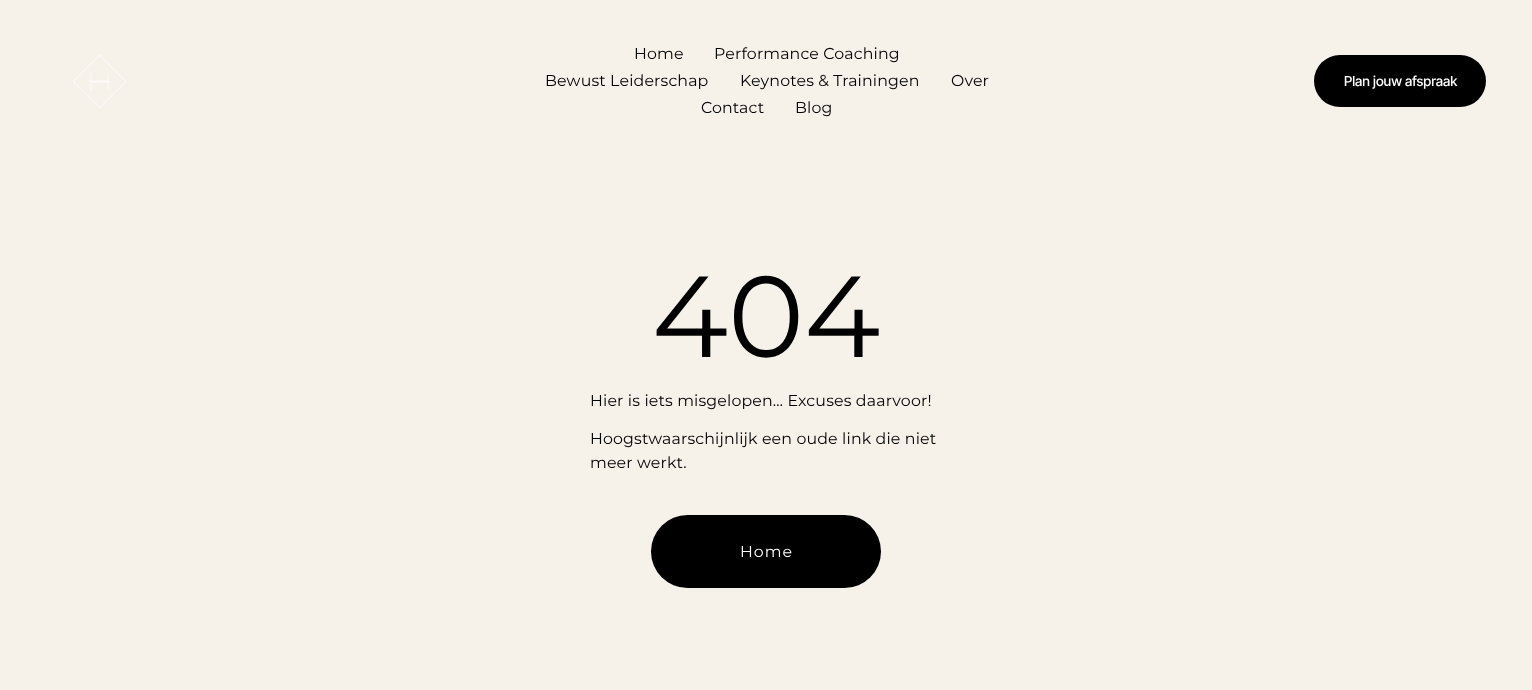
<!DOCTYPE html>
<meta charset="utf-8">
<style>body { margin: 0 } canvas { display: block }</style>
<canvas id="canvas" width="1532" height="690"></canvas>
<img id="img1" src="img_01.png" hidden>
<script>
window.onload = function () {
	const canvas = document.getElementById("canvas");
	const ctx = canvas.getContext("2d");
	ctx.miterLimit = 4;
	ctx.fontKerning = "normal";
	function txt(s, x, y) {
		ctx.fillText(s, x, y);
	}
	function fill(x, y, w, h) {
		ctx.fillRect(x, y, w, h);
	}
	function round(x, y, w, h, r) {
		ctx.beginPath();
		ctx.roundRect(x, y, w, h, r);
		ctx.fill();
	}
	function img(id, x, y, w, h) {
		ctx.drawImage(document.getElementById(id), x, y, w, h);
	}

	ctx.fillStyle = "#F6F2EA";
	fill(0, 0, 1532, 690);
	img("img1", 73, 55, 53, 53);
	ctx.fillStyle = "#000000";
	round(1314, 55, 172, 52, 26);
	round(651, 515, 230, 73, 36.5);
	ctx.letterSpacing = "0.15px";
	ctx.font = "15.8px Montserrat";
	txt("Home", 634, 59);
	txt("Performance Coaching", 714, 59);
	txt("Bewust Leiderschap", 545, 86);
	txt("Keynotes & Trainingen", 740, 86);
	txt("Over", 951, 86);
	txt("Contact", 701, 113);
	txt("Blog", 795, 113);
	ctx.letterSpacing = "0px";
	ctx.font = "500 13.75px Inter Tight";
	ctx.fillStyle = "#FFFFFF";
	txt("Plan jouw afspraak", 1344, 86);
	ctx.font = "115px Montserrat";
	ctx.fillStyle = "#000000";
	txt("404", 652, 357);
	ctx.letterSpacing = "0.15px";
	ctx.font = "15.8px Montserrat";
	txt("Hier is iets misgelopen… Excuses daarvoor!", 590, 406);
	txt("Hoogstwaarschijnlijk een oude link die niet", 590, 444);
	txt("meer werkt.", 590, 468);
	ctx.letterSpacing = "1px";
	ctx.fillStyle = "#FFFFFF";
	txt("Home", 740, 557);
};
</script>
